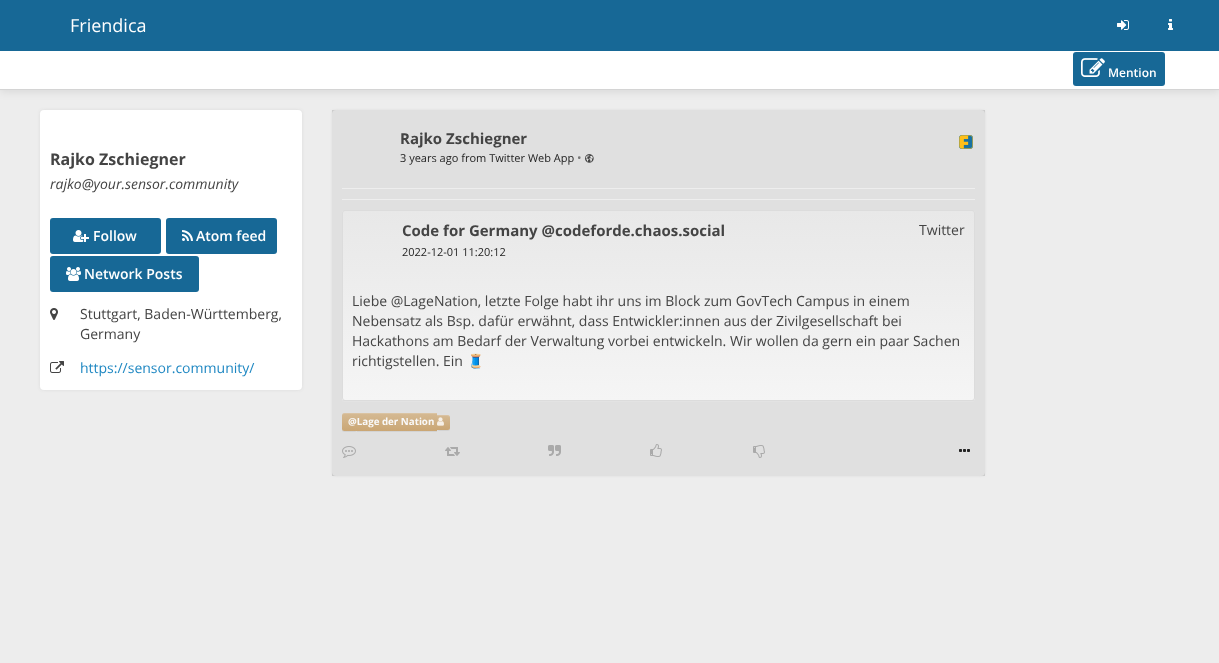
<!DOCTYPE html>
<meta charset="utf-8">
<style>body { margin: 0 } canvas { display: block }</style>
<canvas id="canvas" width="1219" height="663"></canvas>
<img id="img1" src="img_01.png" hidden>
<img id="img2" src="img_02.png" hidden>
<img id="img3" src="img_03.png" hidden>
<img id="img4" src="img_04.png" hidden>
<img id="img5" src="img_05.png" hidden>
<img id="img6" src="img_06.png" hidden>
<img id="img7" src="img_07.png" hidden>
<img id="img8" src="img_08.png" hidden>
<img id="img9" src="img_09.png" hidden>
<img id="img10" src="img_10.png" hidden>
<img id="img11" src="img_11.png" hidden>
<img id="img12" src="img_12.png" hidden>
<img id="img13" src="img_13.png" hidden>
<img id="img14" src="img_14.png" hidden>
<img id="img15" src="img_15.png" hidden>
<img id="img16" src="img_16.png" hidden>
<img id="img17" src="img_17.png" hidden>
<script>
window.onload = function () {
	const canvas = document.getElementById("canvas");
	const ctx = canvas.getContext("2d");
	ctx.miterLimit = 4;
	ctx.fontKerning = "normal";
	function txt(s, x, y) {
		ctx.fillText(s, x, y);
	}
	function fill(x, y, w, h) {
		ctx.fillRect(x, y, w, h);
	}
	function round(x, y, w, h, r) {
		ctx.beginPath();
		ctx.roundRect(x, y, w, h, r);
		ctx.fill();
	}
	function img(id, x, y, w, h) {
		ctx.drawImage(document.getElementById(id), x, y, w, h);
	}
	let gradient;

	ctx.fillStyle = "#EDEDED";
	fill(0, 0, 1219, 663);
	ctx.fillStyle = "rgba(0, 0, 0, 0.1)";
	ctx.filter = "blur(5px)";
	ctx.beginPath();
	ctx.rect(0, 51, 1219, 40);
	ctx.fill();
	ctx.filter = "none";
	ctx.fillStyle = "#176896";
	fill(0, 0, 1219, 51);
	img("img1", 1117, 20, 12, 10);
	img("img2", 1168, 19, 5, 11);
	ctx.fillStyle = "#FFFFFF";
	fill(0, 51, 1219, 38);
	ctx.fillStyle = "#D4D4D4";
	fill(0, 89, 1219, 1);
	ctx.fillStyle = "#176896";
	round(1073, 52, 92, 34, 3);
	img("img3", 1081, 58, 24, 19);
	ctx.fillStyle = "#DADADA";
	ctx.filter = "blur(1.5px)";
	ctx.beginPath();
	ctx.roundRect(40, 110, 262, 280, 4);
	ctx.fill();
	ctx.filter = "none";
	ctx.fillStyle = "#FFFFFF";
	round(40, 110, 262, 280, 4);
	ctx.fillStyle = "#176896";
	round(50, 218, 111, 36, 3);
	img("img4", 73, 230, 16, 12);
	round(166, 218, 111, 36, 3);
	img("img5", 182, 230, 11, 11);
	round(50, 256, 149, 36, 3);
	img("img6", 66, 267, 15, 14);
	img("img7", 50, 308, 8, 12);
	img("img8", 50, 361, 14, 12);
	ctx.fillStyle = "#DADADA";
	ctx.filter = "blur(1px)";
	ctx.beginPath();
	ctx.roundRect(332, 110, 653, 366, 4);
	ctx.fill();
	ctx.filter = "none";
	ctx.fillStyle = "#FFFFFF";
	round(332, 110, 653, 366, 4);
	ctx.fillStyle = "rgba(13, 13, 13, 0.13)";
	fill(332, 110, 653, 366);
	img("img9", 585, 154, 9, 9);
	img("img10", 959, 135, 14, 14);
	ctx.fillStyle = "#EEEEEE";
	fill(342, 188, 633, 1);
	fill(342, 199, 633, 1);
	ctx.fillStyle = "#E3E3E3";
	ctx.beginPath();
	ctx.moveTo(342, 398);
	ctx.lineTo(342, 399);
	ctx.bezierCurveTo(342, 401, 343, 402, 345, 402);
	ctx.lineTo(972, 402);
	ctx.bezierCurveTo(974, 402, 975, 401, 975, 399);
	ctx.lineTo(975, 398);
	ctx.bezierCurveTo(975, 400, 974, 401, 972, 401);
	ctx.lineTo(345, 401);
	ctx.bezierCurveTo(343, 401, 342, 400, 342, 398);
	ctx.closePath();
	ctx.fill();
	ctx.save();
	ctx.beginPath();
	ctx.roundRect(342, 210, 633, 191, 3);
	ctx.clip();
	gradient = ctx.createLinearGradient(659, 211, 659, 400);
	gradient.addColorStop(0, "#E8E8E8");
	gradient.addColorStop(1, "#F5F5F5");
	ctx.fillStyle = gradient;
	fill(342, 211, 633, 189);
	ctx.restore();
	ctx.beginPath();
	ctx.roundRect(342.5, 210.5, 632, 190, 2.5);
	ctx.strokeStyle = "#DCDCDC";
	ctx.stroke();
	ctx.fillStyle = "rgba(45, 45, 45, 0.07)";
	ctx.filter = "blur(0.5px)";
	ctx.beginPath();
	ctx.roundRect(342, 414, 15, 18, 2.5);
	ctx.fill();
	ctx.filter = "none";
	gradient = ctx.createLinearGradient(350, 413, 350, 431);
	gradient.addColorStop(0, "#D5BA94");
	gradient.addColorStop(1, "#CAA674");
	ctx.fillStyle = gradient;
	ctx.beginPath();
	ctx.roundRect(342, 413, 15, 18, [2.5, 0, 0, 2.5]);
	ctx.fill();
	ctx.fillStyle = "rgba(249, 249, 249, 0.15)";
	ctx.beginPath();
	ctx.moveTo(344, 414);
	ctx.lineTo(357, 414);
	ctx.lineTo(357, 413);
	ctx.lineTo(348.5, 413);
	ctx.bezierCurveTo(346, 413, 342, 412, 342, 416);
	ctx.bezierCurveTo(342, 415, 343, 414, 344, 414);
	ctx.closePath();
	ctx.fill();
	ctx.fillStyle = "rgba(45, 45, 45, 0.07)";
	ctx.filter = "blur(0.5px)";
	ctx.beginPath();
	ctx.rect(357, 414, 77, 18);
	ctx.fill();
	ctx.filter = "none";
	gradient = ctx.createLinearGradient(396, 413, 396, 431);
	gradient.addColorStop(0, "#D5BA94");
	gradient.addColorStop(1, "#CAA674");
	ctx.fillStyle = gradient;
	fill(357, 414, 77, 17);
	ctx.fillStyle = "#DAC3A2";
	fill(357, 413, 77, 1);
	ctx.fillStyle = "rgba(45, 45, 45, 0.07)";
	ctx.filter = "blur(0.5px)";
	ctx.beginPath();
	ctx.rect(434, 414, 3, 18);
	ctx.fill();
	ctx.filter = "none";
	gradient = ctx.createLinearGradient(436, 413, 436, 431);
	gradient.addColorStop(0, "#D5BA94");
	gradient.addColorStop(1, "#CAA674");
	ctx.fillStyle = gradient;
	fill(434, 413, 3, 18);
	ctx.fillStyle = "#DAC3A2";
	fill(434, 413, 3, 1);
	ctx.fillStyle = "rgba(45, 45, 45, 0.07)";
	ctx.filter = "blur(0.5px)";
	ctx.beginPath();
	ctx.roundRect(437, 416, 13, 15, 2.5);
	ctx.fill();
	ctx.filter = "none";
	gradient = ctx.createLinearGradient(444, 415, 444, 430);
	gradient.addColorStop(0, "#D5BA94");
	gradient.addColorStop(1, "#CAA674");
	ctx.fillStyle = gradient;
	ctx.beginPath();
	ctx.roundRect(437, 415, 13, 15, [0, 2.5, 2.5, 0]);
	ctx.fill();
	ctx.fillStyle = "rgba(249, 249, 249, 0.15)";
	ctx.beginPath();
	ctx.moveTo(437, 416);
	ctx.lineTo(446, 416);
	ctx.bezierCurveTo(449, 416, 450, 417, 450, 419);
	ctx.bezierCurveTo(450, 414.5, 448, 415, 444, 415);
	ctx.lineTo(437, 415);
	ctx.closePath();
	ctx.fill();
	img("img11", 437, 417, 7, 9);
	img("img12", 342, 446, 14, 12);
	img("img13", 445, 447, 15, 9);
	img("img14", 548, 445, 13, 11);
	img("img15", 650, 444, 12, 13);
	img("img16", 753, 445, 12, 13);
	img("img17", 959, 449, 11, 3);
	ctx.font = "18px Open Sans";
	ctx.fillStyle = "#FFFFFF";
	txt("Friendica", 70, 32);
	ctx.font = "600 12px Open Sans";
	txt("Mention", 1108, 77);
	ctx.font = "bold 16px Open Sans";
	ctx.fillStyle = "#444444";
	txt("Rajko Zschiegner", 50, 165);
	ctx.font = "italic 14px Open Sans";
	txt("rajko@your.sensor.community", 50, 189);
	ctx.font = "600 14px Open Sans";
	ctx.fillStyle = "#FFFFFF";
	txt("Follow", 93, 241);
	txt("Atom feed", 196, 241);
	txt("Network Posts", 84, 279);
	ctx.font = "14px Open Sans";
	ctx.fillStyle = "#444444";
	txt("Stuttgart, Baden-Württemberg,", 80, 319);
	txt("Germany", 80, 339);
	ctx.fillStyle = "#1E87C2";
	txt("https://sensor.community/", 80, 373);
	ctx.font = "bold 15px Open Sans";
	ctx.fillStyle = "#444444";
	txt("Rajko Zschiegner", 400, 144);
	ctx.font = "11px Open Sans";
	ctx.fillStyle = "#222222";
	txt("3 years ago from Twitter Web App", 400, 162);
	ctx.font = "12px Open Sans";
	ctx.fillStyle = "#777777";
	txt("•", 577, 162);
	ctx.font = "bold 15px Open Sans";
	ctx.fillStyle = "#444444";
	txt("Code for Germany @codeforde.chaos.social", 402, 236);
	ctx.font = "11px Open Sans";
	ctx.fillStyle = "#222222";
	txt("2022-12-01 11:20:12", 402, 256);
	ctx.font = "14px Open Sans";
	ctx.fillStyle = "#444444";
	txt("Twitter", 919, 235);
	txt("Liebe @LageNation, letzte Folge habt ihr uns im Block zum GovTech Campus in einem", 352, 306);
	txt("Nebensatz als Bsp. dafür erwähnt, dass Entwickler:innen aus der Zivilgesellschaft bei", 352, 326);
	txt("Hackathons am Bedarf der Verwaltung vorbei entwickeln. Wir wollen da gern ein paar Sachen", 352, 346);
	txt("richtigstellen. Ein", 352, 366);
	ctx.font = "14px Noto Color Emoji";
	txt("🧵", 467, 366);
	ctx.font = "bold 9.75px Open Sans";
	ctx.fillStyle = "#F9F9F9";
	txt("@Lage der Nation", 348, 425);
};
</script>
